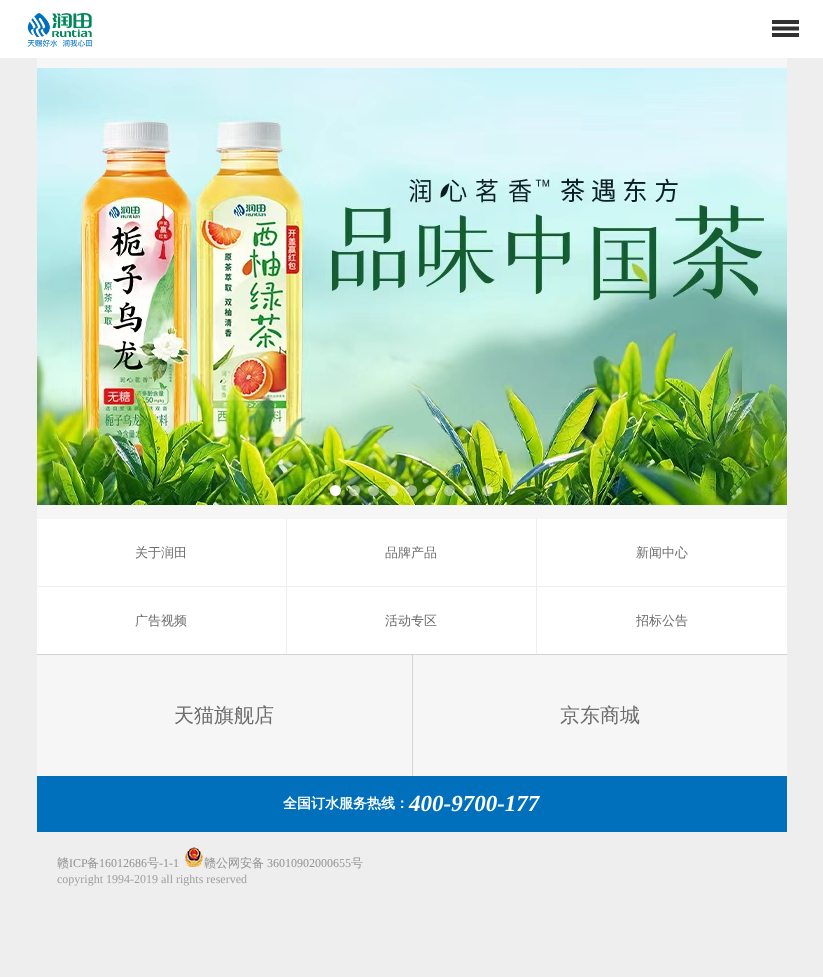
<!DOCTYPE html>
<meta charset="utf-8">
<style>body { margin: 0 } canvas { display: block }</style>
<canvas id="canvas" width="823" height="977"></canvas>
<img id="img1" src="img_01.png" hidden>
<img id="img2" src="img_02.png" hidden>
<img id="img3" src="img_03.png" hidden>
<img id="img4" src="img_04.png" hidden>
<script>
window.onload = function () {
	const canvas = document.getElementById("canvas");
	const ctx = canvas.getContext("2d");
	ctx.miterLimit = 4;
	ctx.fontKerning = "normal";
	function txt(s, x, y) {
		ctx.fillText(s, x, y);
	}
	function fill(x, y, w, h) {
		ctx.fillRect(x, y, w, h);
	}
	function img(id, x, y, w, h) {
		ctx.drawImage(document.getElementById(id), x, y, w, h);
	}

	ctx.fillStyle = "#EEEEEE";
	fill(0, 0, 823, 977);
	ctx.fillStyle = "#F6F6F6";
	fill(37, 58, 750, 718);
	ctx.fillStyle = "#FFFFFF";
	fill(0, 0, 823, 58);
	img("img1", 27, 13, 65, 34);
	img("img2", 772, 20, 27, 17);
	img("img3", 37, 68, 750, 437);
	ctx.beginPath();
	ctx.arc(335.5, 490.5, 5.5, 0, Math.PI * 2);
	ctx.fill();
	ctx.fillStyle = "rgba(255, 255, 255, 0.5)";
	ctx.beginPath();
	ctx.arc(354.5, 490.5, 5.5, 0, Math.PI * 2);
	ctx.fill();
	ctx.beginPath();
	ctx.arc(373.5, 490.5, 5.5, 0, Math.PI * 2);
	ctx.fill();
	ctx.beginPath();
	ctx.arc(392.5, 490.5, 5.5, 0, Math.PI * 2);
	ctx.fill();
	ctx.beginPath();
	ctx.arc(411.5, 490.5, 5.5, 0, Math.PI * 2);
	ctx.fill();
	ctx.beginPath();
	ctx.arc(430.5, 490.5, 5.5, 0, Math.PI * 2);
	ctx.fill();
	ctx.beginPath();
	ctx.arc(449.5, 490.5, 5.5, 0, Math.PI * 2);
	ctx.fill();
	ctx.beginPath();
	ctx.arc(468.5, 490.5, 5.5, 0, Math.PI * 2);
	ctx.fill();
	ctx.beginPath();
	ctx.arc(487.5, 490.5, 5.5, 0, Math.PI * 2);
	ctx.fill();
	ctx.fillStyle = "#FFFFFF";
	fill(37, 519, 750, 135);
	ctx.fillStyle = "#EEEEEE";
	fill(37, 586, 750, 1);
	fill(536, 519, 1, 67);
	fill(286, 519, 1, 67);
	fill(536, 587, 1, 67);
	fill(286, 587, 1, 67);
	ctx.fillStyle = "#D3D3D3";
	fill(37, 654, 750, 1);
	fill(412, 654, 1, 122);
	ctx.fillStyle = "#0070BD";
	fill(37, 776, 750, 56);
	img("img4", 185, 847, 18, 20);
	ctx.font = "500 13px WenQuanYi Zen Hei";
	ctx.fillStyle = "#6D6D6D";
	txt("关于润田", 135, 557);
	txt("品牌产品", 385, 557);
	txt("新闻中心", 636, 557);
	txt("广告视频", 135, 625);
	txt("活动专区", 385, 625);
	txt("招标公告", 636, 625);
	ctx.font = "500 20px WenQuanYi Zen Hei";
	txt("天猫旗舰店", 174, 722);
	txt("京东商城", 560, 722);
	ctx.font = "bold 14px WenQuanYi Zen Hei";
	ctx.fillStyle = "#FFFFFF";
	txt("全国订水服务热线：", 283, 808);
	ctx.font = "italic bold 23px Liberation Serif";
	txt("400-9700-177", 409, 811);
	ctx.font = "500 12px WenQuanYi Zen Hei";
	ctx.fillStyle = "#939393";
	txt("赣", 57, 867);
	ctx.font = "12px Liberation Serif";
	txt("ICP", 69, 867);
	ctx.font = "500 12px WenQuanYi Zen Hei";
	txt("备", 87, 867);
	ctx.font = "12px Liberation Serif";
	txt("16012686", 99, 867);
	ctx.font = "500 12px WenQuanYi Zen Hei";
	txt("号", 147, 867);
	ctx.font = "12px Liberation Serif";
	txt("-1-1", 159, 867);
	ctx.font = "500 12px WenQuanYi Zen Hei";
	txt("赣公网安备", 204, 867);
	ctx.font = "12px Liberation Serif";
	txt("36010902000655", 267, 867);
	ctx.font = "500 12px WenQuanYi Zen Hei";
	txt("号", 351, 867);
	ctx.font = "12px Liberation Serif";
	ctx.fillStyle = "#A0A0A0";
	txt("copyright 1994-2019 all rights reserved", 57, 883);
};
</script>
